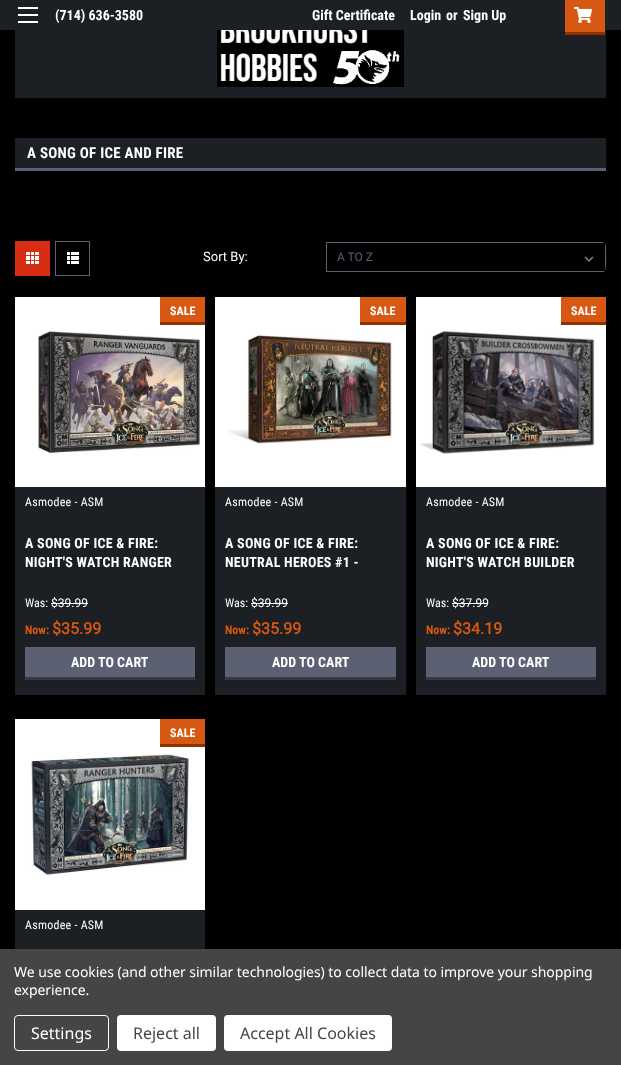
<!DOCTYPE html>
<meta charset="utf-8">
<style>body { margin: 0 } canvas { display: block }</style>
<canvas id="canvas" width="621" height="1065"></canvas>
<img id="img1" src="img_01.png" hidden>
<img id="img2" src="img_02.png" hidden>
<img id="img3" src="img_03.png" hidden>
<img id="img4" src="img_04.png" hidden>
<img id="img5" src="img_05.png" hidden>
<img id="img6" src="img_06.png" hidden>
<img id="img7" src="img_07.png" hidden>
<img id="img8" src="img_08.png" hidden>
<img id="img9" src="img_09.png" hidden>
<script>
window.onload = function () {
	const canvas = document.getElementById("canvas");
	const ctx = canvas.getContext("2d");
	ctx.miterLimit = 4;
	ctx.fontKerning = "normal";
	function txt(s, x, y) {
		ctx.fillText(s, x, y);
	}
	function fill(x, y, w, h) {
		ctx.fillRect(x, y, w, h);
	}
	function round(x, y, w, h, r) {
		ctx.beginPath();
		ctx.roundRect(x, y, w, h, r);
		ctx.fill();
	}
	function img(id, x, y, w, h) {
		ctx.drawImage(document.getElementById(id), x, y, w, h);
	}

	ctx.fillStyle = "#000000";
	fill(0, 0, 621, 1065);
	ctx.fillStyle = "#1C1F24";
	fill(0, 0, 621, 30);
	ctx.fillStyle = "#FFFFFF";
	fill(18, 14, 20, 2);
	fill(18, 7, 20, 2);
	fill(18, 21, 20, 2);
	ctx.fillStyle = "#1C1F24";
	fill(15, 30, 591, 68);
	ctx.fillStyle = "#D75813";
	fill(565, 0, 40, 32);
	ctx.fillStyle = "#8F3200";
	fill(565, 32, 40, 3);
	img("img1", 574, 6, 18, 17);
	img("img2", 217, 30, 187, 57);
	ctx.fillStyle = "#1C1F24";
	fill(15, 138, 591, 30);
	ctx.fillStyle = "#5B6073";
	fill(15, 168, 591, 3);
	ctx.fillStyle = "#D72E13";
	fill(15, 241, 35, 35);
	img("img3", 26, 252, 13, 12);
	ctx.strokeStyle = "#5B6073";
	ctx.strokeRect(55.5, 241.5, 34, 34);
	img("img4", 67, 252, 12, 12);
	img("img5", 584, 256, 10, 6);
	ctx.fillStyle = "#5B6073";
	ctx.beginPath();
	ctx.moveTo(326, 242);
	ctx.lineTo(326, 272);
	ctx.lineTo(602, 272);
	ctx.bezierCurveTo(603, 272, 604, 272, 605, 271);
	ctx.lineTo(327, 271);
	ctx.lineTo(327, 243);
	ctx.lineTo(605, 243);
	ctx.lineTo(602, 242);
	ctx.closePath();
	ctx.moveTo(606, 246);
	ctx.lineTo(605, 243);
	ctx.lineTo(605, 271);
	ctx.bezierCurveTo(607, 268, 606, 250, 606, 246);
	ctx.closePath();
	ctx.fill("evenodd");
	ctx.fillStyle = "#1C1F24";
	fill(15, 487, 190, 208);
	ctx.fillStyle = "#FFFFFF";
	fill(15, 297, 190, 190);
	ctx.fillStyle = "#D75813";
	fill(160, 297, 45, 25);
	ctx.fillStyle = "#8F3200";
	fill(160, 322, 45, 3);
	img("img6", 38, 331, 162, 122);
	ctx.fillStyle = "#FFFFFF";
	fill(51, 603, 37, 1);
	ctx.fillStyle = "#5B6073";
	fill(25, 647, 170, 30);
	ctx.fillStyle = "#363945";
	fill(25, 677, 170, 3);
	ctx.fillStyle = "#1C1F24";
	fill(215, 487, 191, 208);
	ctx.fillStyle = "#FFFFFF";
	fill(215, 297, 191, 190);
	ctx.fillStyle = "#D75813";
	fill(360, 297, 46, 25);
	ctx.fillStyle = "#8F3200";
	fill(360, 322, 46, 3);
	img("img7", 227, 335, 165, 109);
	ctx.fillStyle = "#FFFFFF";
	fill(251, 603, 37, 1);
	ctx.fillStyle = "#5B6073";
	fill(225, 647, 171, 30);
	ctx.fillStyle = "#363945";
	fill(225, 677, 171, 3);
	ctx.fillStyle = "#1C1F24";
	fill(416, 487, 190, 208);
	ctx.fillStyle = "#FFFFFF";
	fill(416, 297, 190, 190);
	ctx.fillStyle = "#D75813";
	fill(561, 297, 45, 25);
	ctx.fillStyle = "#8F3200";
	fill(561, 322, 45, 3);
	img("img8", 420, 331, 175, 123);
	ctx.fillStyle = "#FFFFFF";
	fill(452, 603, 36, 1);
	ctx.fillStyle = "#5B6073";
	fill(426, 647, 170, 30);
	ctx.fillStyle = "#363945";
	fill(426, 677, 170, 3);
	ctx.fillStyle = "#1C1F24";
	fill(15, 910, 190, 39);
	ctx.fillStyle = "#FFFFFF";
	fill(15, 719, 190, 191);
	ctx.fillStyle = "#D75813";
	fill(160, 719, 45, 25);
	ctx.fillStyle = "#8F3200";
	fill(160, 744, 45, 3);
	img("img9", 31, 754, 158, 122);
	ctx.fillStyle = "#454545";
	fill(0, 949, 621, 116);
	ctx.beginPath();
	ctx.roundRect(14.5, 1015.5, 94, 35, 3.5);
	ctx.strokeStyle = "#FFFFFF";
	ctx.stroke();
	ctx.fillStyle = "#FFFFFF";
	round(117, 1015, 99, 36, 4);
	round(224, 1015, 168, 36, 4);
	ctx.font = "bold 14px Roboto Condensed";
	txt("(714) 636-3580", 55, 20);
	txt("Gift Certificate", 312, 20);
	txt("Login", 410, 20);
	txt("or", 446, 20);
	txt("Sign Up", 463, 20);
	ctx.letterSpacing = "0.25px";
	ctx.font = "bold 15px Roboto Condensed";
	txt("A SONG OF ICE AND FIRE", 27, 158);
	ctx.letterSpacing = "0px";
	ctx.font = "13px Roboto";
	txt("Sort By:", 203, 261);
	ctx.font = "12px Roboto";
	ctx.fillStyle = "#5B6073";
	txt("A TO Z", 337, 261);
	ctx.font = "bold 12px Roboto Condensed";
	ctx.fillStyle = "#FFFFFF";
	txt("SALE", 170, 315);
	ctx.letterSpacing = "0.25px";
	ctx.font = "12px Roboto Condensed";
	txt("Asmodee - ASM", 25, 506);
	ctx.font = "bold 14px Roboto Condensed";
	txt("A SONG OF ICE & FIRE:", 25, 548);
	txt("NIGHT'S WATCH RANGER", 25, 567);
	ctx.letterSpacing = "0px";
	ctx.font = "12px Roboto Condensed";
	txt("Was:", 25, 607);
	ctx.font = "12px Roboto";
	txt("$39.99", 51, 607);
	ctx.font = "bold 12px Roboto Condensed";
	ctx.fillStyle = "#D75813";
	txt("Now:", 25, 634);
	ctx.font = "bold 16px Roboto";
	txt("$35.99", 52, 634);
	ctx.font = "bold 14px Roboto Condensed";
	ctx.fillStyle = "#FFFFFF";
	txt("ADD TO CART", 71, 667);
	ctx.font = "bold 12px Roboto Condensed";
	txt("SALE", 370, 315);
	ctx.letterSpacing = "0.25px";
	ctx.font = "12px Roboto Condensed";
	txt("Asmodee - ASM", 225, 506);
	ctx.font = "bold 14px Roboto Condensed";
	txt("A SONG OF ICE & FIRE:", 225, 548);
	txt("NEUTRAL HEROES #1 -", 225, 567);
	ctx.letterSpacing = "0px";
	ctx.font = "12px Roboto Condensed";
	txt("Was:", 225, 607);
	ctx.font = "12px Roboto";
	txt("$39.99", 251, 607);
	ctx.font = "bold 12px Roboto Condensed";
	ctx.fillStyle = "#D75813";
	txt("Now:", 225, 634);
	ctx.font = "bold 16px Roboto";
	txt("$35.99", 252, 634);
	ctx.font = "bold 14px Roboto Condensed";
	ctx.fillStyle = "#FFFFFF";
	txt("ADD TO CART", 272, 667);
	ctx.font = "bold 12px Roboto Condensed";
	txt("SALE", 571, 315);
	ctx.letterSpacing = "0.25px";
	ctx.font = "12px Roboto Condensed";
	txt("Asmodee - ASM", 426, 506);
	ctx.font = "bold 14px Roboto Condensed";
	txt("A SONG OF ICE & FIRE:", 426, 548);
	txt("NIGHT'S WATCH BUILDER", 426, 567);
	ctx.letterSpacing = "0px";
	ctx.font = "12px Roboto Condensed";
	txt("Was:", 426, 607);
	ctx.font = "12px Roboto";
	txt("$37.99", 452, 607);
	ctx.font = "bold 12px Roboto Condensed";
	ctx.fillStyle = "#D75813";
	txt("Now:", 426, 634);
	ctx.font = "bold 16px Roboto";
	txt("$34.19", 453, 634);
	ctx.font = "bold 14px Roboto Condensed";
	ctx.fillStyle = "#FFFFFF";
	txt("ADD TO CART", 472, 667);
	ctx.font = "bold 12px Roboto Condensed";
	txt("SALE", 170, 737);
	ctx.letterSpacing = "0.25px";
	ctx.font = "12px Roboto Condensed";
	txt("Asmodee - ASM", 25, 929);
	ctx.letterSpacing = "-0.05px";
	ctx.font = "14px Noto Sans";
	txt("We use cookies (and other similar technologies) to collect data to improve your shopping", 14, 977);
	txt("experience.", 14, 995);
	ctx.letterSpacing = "0px";
	ctx.font = "16px Noto Sans";
	txt("Settings", 31, 1039);
	ctx.fillStyle = "#454545";
	txt("Reject all", 133, 1039);
	txt("Accept All Cookies", 240, 1039);
};
</script>
